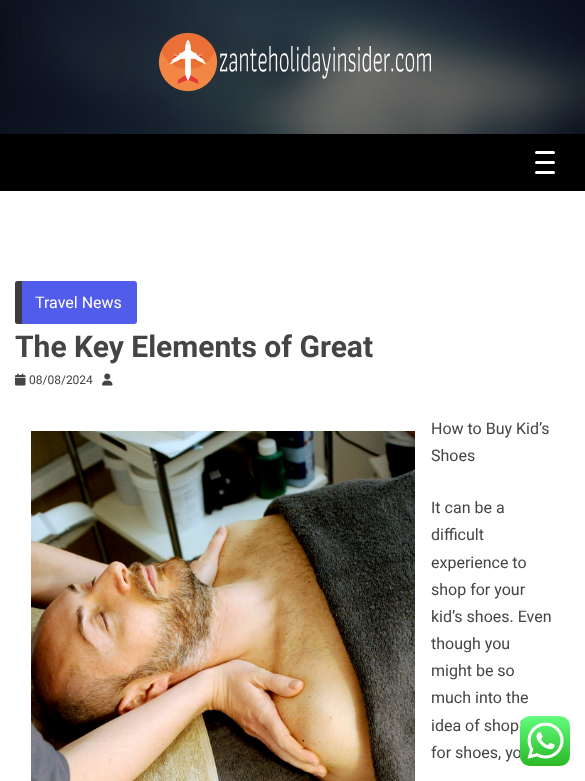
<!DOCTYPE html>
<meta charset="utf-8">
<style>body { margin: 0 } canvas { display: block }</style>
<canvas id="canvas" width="585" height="781"></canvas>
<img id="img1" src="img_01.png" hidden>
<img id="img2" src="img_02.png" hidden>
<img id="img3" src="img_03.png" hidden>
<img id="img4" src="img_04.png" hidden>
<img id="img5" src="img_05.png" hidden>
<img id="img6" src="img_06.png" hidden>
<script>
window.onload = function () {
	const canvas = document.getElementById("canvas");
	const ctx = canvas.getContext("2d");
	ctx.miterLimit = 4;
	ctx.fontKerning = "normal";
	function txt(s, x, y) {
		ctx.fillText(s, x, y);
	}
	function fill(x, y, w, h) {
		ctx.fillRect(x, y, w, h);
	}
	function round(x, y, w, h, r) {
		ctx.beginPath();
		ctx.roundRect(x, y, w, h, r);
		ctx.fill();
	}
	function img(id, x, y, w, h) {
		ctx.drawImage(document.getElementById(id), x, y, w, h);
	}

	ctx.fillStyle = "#FFFFFF";
	fill(0, 0, 585, 781);
	img("img1", 0, 0, 585, 134);
	img("img2", 158, 32, 273, 60);
	ctx.fillStyle = "#000000";
	fill(0, 134, 585, 57);
	ctx.fillStyle = "#FFFFFF";
	round(535, 151, 20, 3, 1.5);
	round(535, 161, 20, 3, 1.5);
	round(535, 171, 20, 3, 1.5);
	ctx.fillStyle = "#525CEB";
	round(15, 281, 122, 43, 3);
	ctx.fillStyle = "#3D3B40";
	ctx.beginPath();
	ctx.roundRect(15, 281, 7, 43, [3, 0, 0, 3]);
	ctx.fill();
	img("img3", 15, 373, 11, 13);
	img("img4", 102, 373, 11, 13);
	img("img5", 31, 431, 384, 350);
	ctx.font = "16px Roboto";
	ctx.fillStyle = "#FFFFFF";
	txt("Travel News", 35, 308);
	ctx.font = "bold 30px Roboto";
	ctx.fillStyle = "#444444";
	txt("The Key Elements of Great", 15, 357);
	ctx.font = "12px Roboto";
	txt("08/08/2024", 29, 384);
	ctx.font = "16px Roboto";
	txt("How to Buy Kid’s", 431, 434);
	txt("Shoes", 431, 461);
	txt("It can be a", 431, 513);
	txt("difficult", 431, 540);
	txt("experience to", 431, 568);
	txt("shop for your", 431, 595);
	txt("kid’s shoes. Even", 431, 622);
	txt("though you", 431, 649);
	txt("might be so", 431, 676);
	txt("much into the", 431, 703);
	txt("idea of shop", 431, 731);
	txt("for shoes, yo", 431, 758);
	ctx.fillStyle = "rgba(0, 0, 0, 0.98)";
	round(520, 719, 45, 42, 5);
	ctx.beginPath();
	ctx.roundRect(520.5, 719.5, 44, 41, 4.5);
	ctx.strokeStyle = "rgba(255, 255, 255, 0.98)";
	ctx.stroke();
	img("img6", 520, 716, 50, 50);
};
</script>
